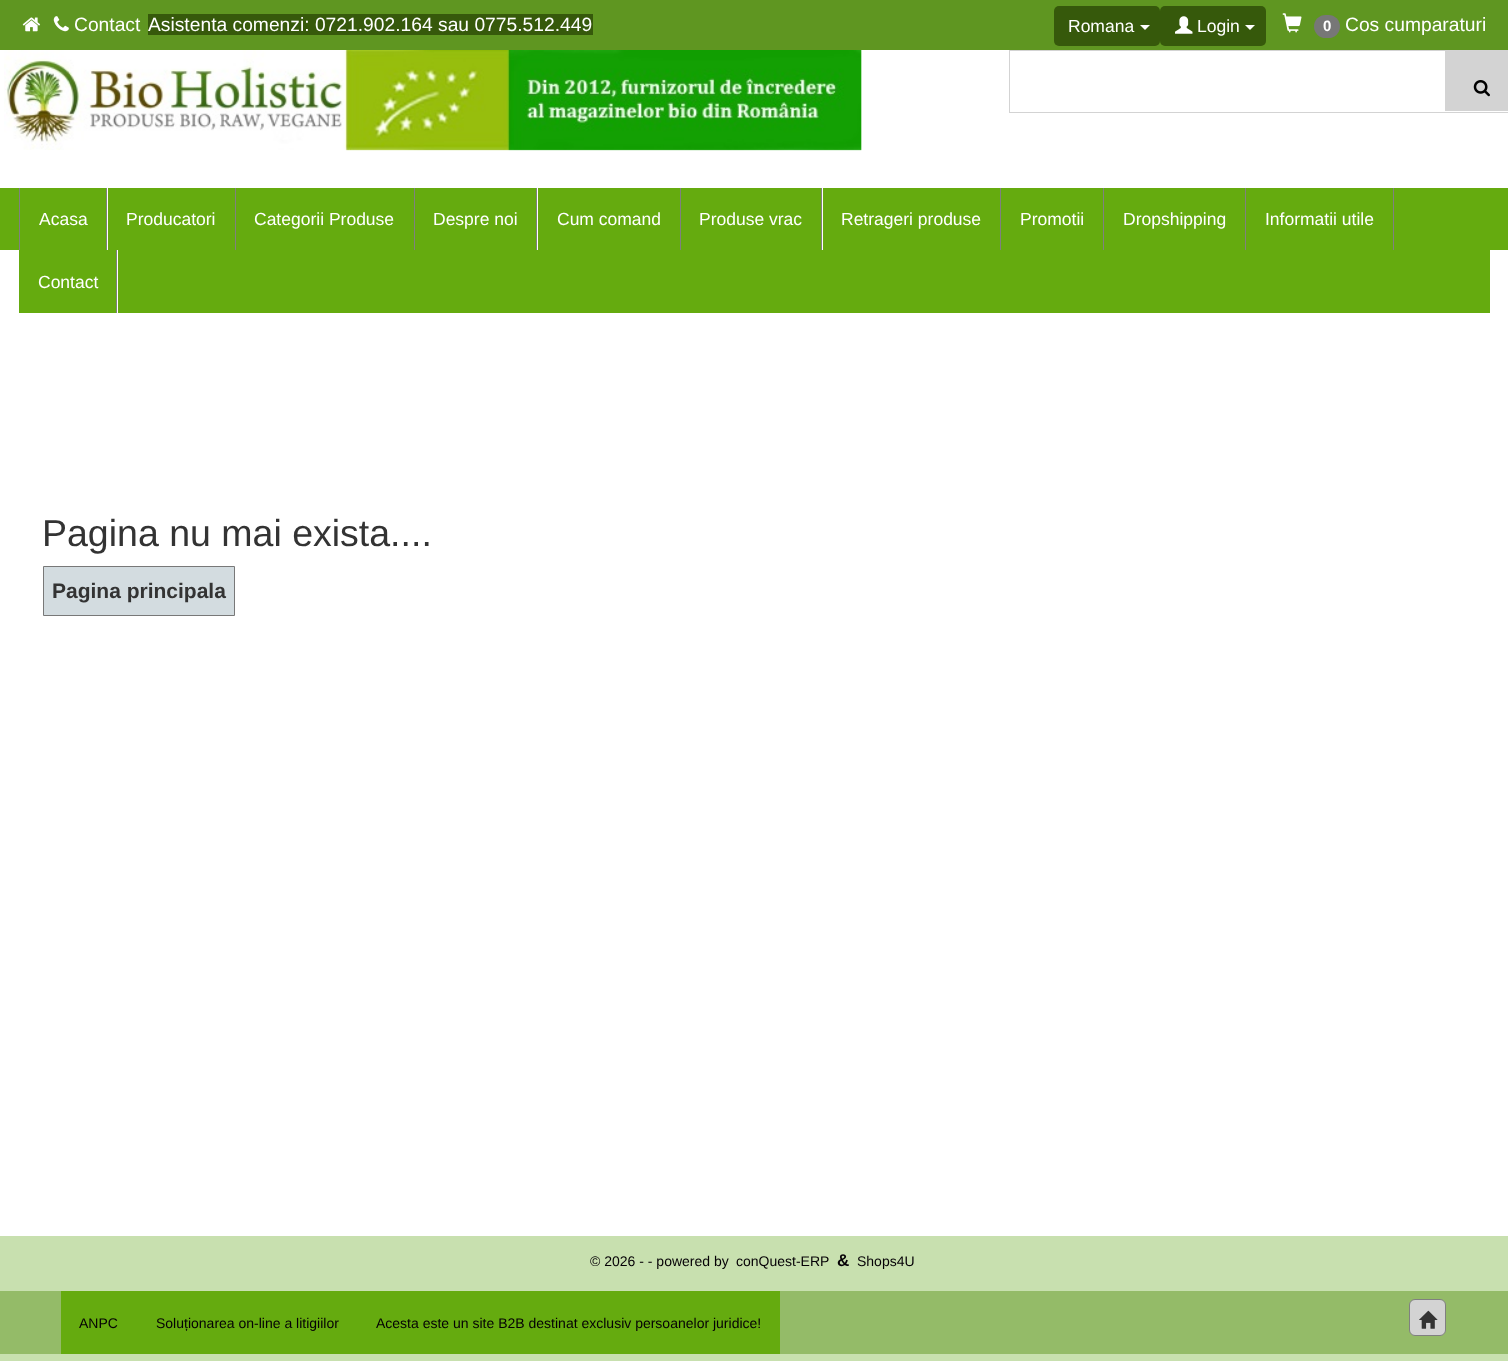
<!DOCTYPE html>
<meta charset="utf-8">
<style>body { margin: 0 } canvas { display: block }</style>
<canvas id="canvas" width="1508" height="1361"></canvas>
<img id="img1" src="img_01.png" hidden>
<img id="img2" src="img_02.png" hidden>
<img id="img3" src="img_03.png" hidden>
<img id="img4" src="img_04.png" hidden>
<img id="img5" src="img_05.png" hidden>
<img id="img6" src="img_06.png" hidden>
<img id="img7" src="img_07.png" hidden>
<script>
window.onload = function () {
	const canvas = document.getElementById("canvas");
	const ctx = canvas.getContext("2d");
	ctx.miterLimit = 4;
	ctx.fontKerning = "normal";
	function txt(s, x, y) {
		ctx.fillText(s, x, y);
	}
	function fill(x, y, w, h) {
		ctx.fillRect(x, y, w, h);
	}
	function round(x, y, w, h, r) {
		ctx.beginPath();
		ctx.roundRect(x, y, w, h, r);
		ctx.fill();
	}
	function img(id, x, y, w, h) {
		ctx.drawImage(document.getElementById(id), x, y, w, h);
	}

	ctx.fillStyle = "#FFFFFF";
	fill(0, 0, 1508, 1361);
	ctx.fillStyle = "#5F9621";
	fill(0, 0, 1508, 50);
	img("img1", 22, 17, 19, 15);
	img("img2", 53, 16, 16, 16);
	ctx.fillStyle = "#36590B";
	fill(148, 14, 445, 21);
	round(1054, 6, 106, 40, 5);
	ctx.fillStyle = "#FFFFFF";
	ctx.beginPath();
	ctx.moveTo(1140, 25);
	ctx.lineTo(1150, 25);
	ctx.lineTo(1145, 30);
	ctx.closePath();
	ctx.fill();
	ctx.fillStyle = "#36590B";
	round(1160, 6, 106, 40, 5);
	img("img3", 1175, 16, 18, 18);
	ctx.fillStyle = "#FFFFFF";
	ctx.beginPath();
	ctx.moveTo(1245, 25);
	ctx.lineTo(1255, 25);
	ctx.lineTo(1250, 30);
	ctx.closePath();
	ctx.fill();
	img("img4", 1282, 13, 20, 20);
	ctx.fillStyle = "#777777";
	round(1314, 15, 26, 23, 11.5);
	img("img5", 4, 50, 858, 101);
	ctx.strokeStyle = "#D3D3D3";
	ctx.strokeRect(1009.5, 50.5, 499, 62);
	ctx.fillStyle = "#D3D3D3";
	fill(1445, 51, 63, 60);
	img("img6", 1473, 80, 17, 17);
	ctx.fillStyle = "#65AB0F";
	fill(0, 188, 1508, 62);
	fill(118, 250, 1372, 63);
	ctx.fillStyle = "#FFFFFF";
	fill(107, 188, 1, 62);
	ctx.fillStyle = "#808080";
	fill(106, 188, 1, 62);
	fill(19, 188, 1, 62);
	fill(235, 188, 1, 62);
	fill(414, 188, 1, 62);
	ctx.fillStyle = "#FFFFFF";
	fill(537, 188, 1, 62);
	ctx.fillStyle = "#808080";
	fill(536, 188, 1, 62);
	fill(680, 188, 1, 62);
	ctx.fillStyle = "#FFFFFF";
	fill(822, 188, 1, 62);
	ctx.fillStyle = "#808080";
	fill(821, 188, 1, 62);
	fill(1000, 188, 1, 62);
	fill(1103, 188, 1, 62);
	fill(1245, 188, 1, 62);
	fill(1393, 188, 1, 62);
	fill(116, 250, 1, 63);
	ctx.fillStyle = "#65AB0F";
	fill(19, 250, 97, 63);
	ctx.fillStyle = "#D3DCE0";
	ctx.beginPath();
	ctx.rect(43.5, 566.5, 191, 49);
	ctx.fill();
	ctx.strokeStyle = "#787878";
	ctx.stroke();
	ctx.fillStyle = "#C8E0AF";
	fill(0, 1236, 1508, 125);
	ctx.fillStyle = "#94BB68";
	fill(0, 1291, 1508, 63);
	ctx.fillStyle = "#65AB0F";
	fill(61, 1291, 719, 63);
	ctx.fillStyle = "#D3D3D3";
	ctx.beginPath();
	ctx.roundRect(1409.5, 1299.5, 36, 36, 5.5);
	ctx.fill();
	ctx.strokeStyle = "#808080";
	ctx.stroke();
	img("img7", 1419, 1310, 19, 19);
	ctx.font = "19.25px Liberation Sans";
	ctx.fillStyle = "#FFFFFF";
	txt("Contact", 74, 31);
	txt("Asistenta comenzi: 0721.902.164 sau 0775.512.449", 148, 31);
	ctx.font = "17.5px Liberation Sans";
	txt("Romana", 1068, 32);
	txt("Login", 1197, 32);
	ctx.font = "bold 15px Liberation Sans";
	txt("0", 1323, 31);
	ctx.font = "19.25px Liberation Sans";
	txt("Cos cumparaturi", 1345, 31);
	ctx.font = "17.5px Liberation Sans";
	txt("Acasa", 39, 225);
	txt("Producatori", 126, 225);
	txt("Categorii Produse", 254, 225);
	txt("Despre noi", 433, 225);
	txt("Cum comand", 557, 225);
	txt("Produse vrac", 699, 225);
	txt("Retrageri produse", 841, 225);
	txt("Promotii", 1020, 225);
	txt("Dropshipping", 1123, 225);
	txt("Informatii utile", 1265, 225);
	txt("Contact", 38, 288);
	ctx.font = "37.5px Liberation Sans";
	ctx.fillStyle = "#333333";
	txt("Pagina nu mai exista....", 42, 546);
	ctx.font = "bold 21px Liberation Sans";
	txt("Pagina principala", 52, 598);
	ctx.font = "14px Liberation Sans";
	ctx.fillStyle = "#050005";
	txt("© 2026 - - powered by", 590, 1266);
	txt("conQuest-ERP", 736, 1266);
	ctx.font = "bold 17px Liberation Sans";
	txt("&", 837, 1266);
	ctx.font = "14px Liberation Sans";
	txt("Shops4U", 857, 1266);
	txt("ANPC", 79, 1328);
	txt("Soluționarea on-line a litigiilor", 156, 1328);
	txt("Acesta este un site B2B destinat exclusiv persoanelor juridice!", 376, 1328);
};
</script>
